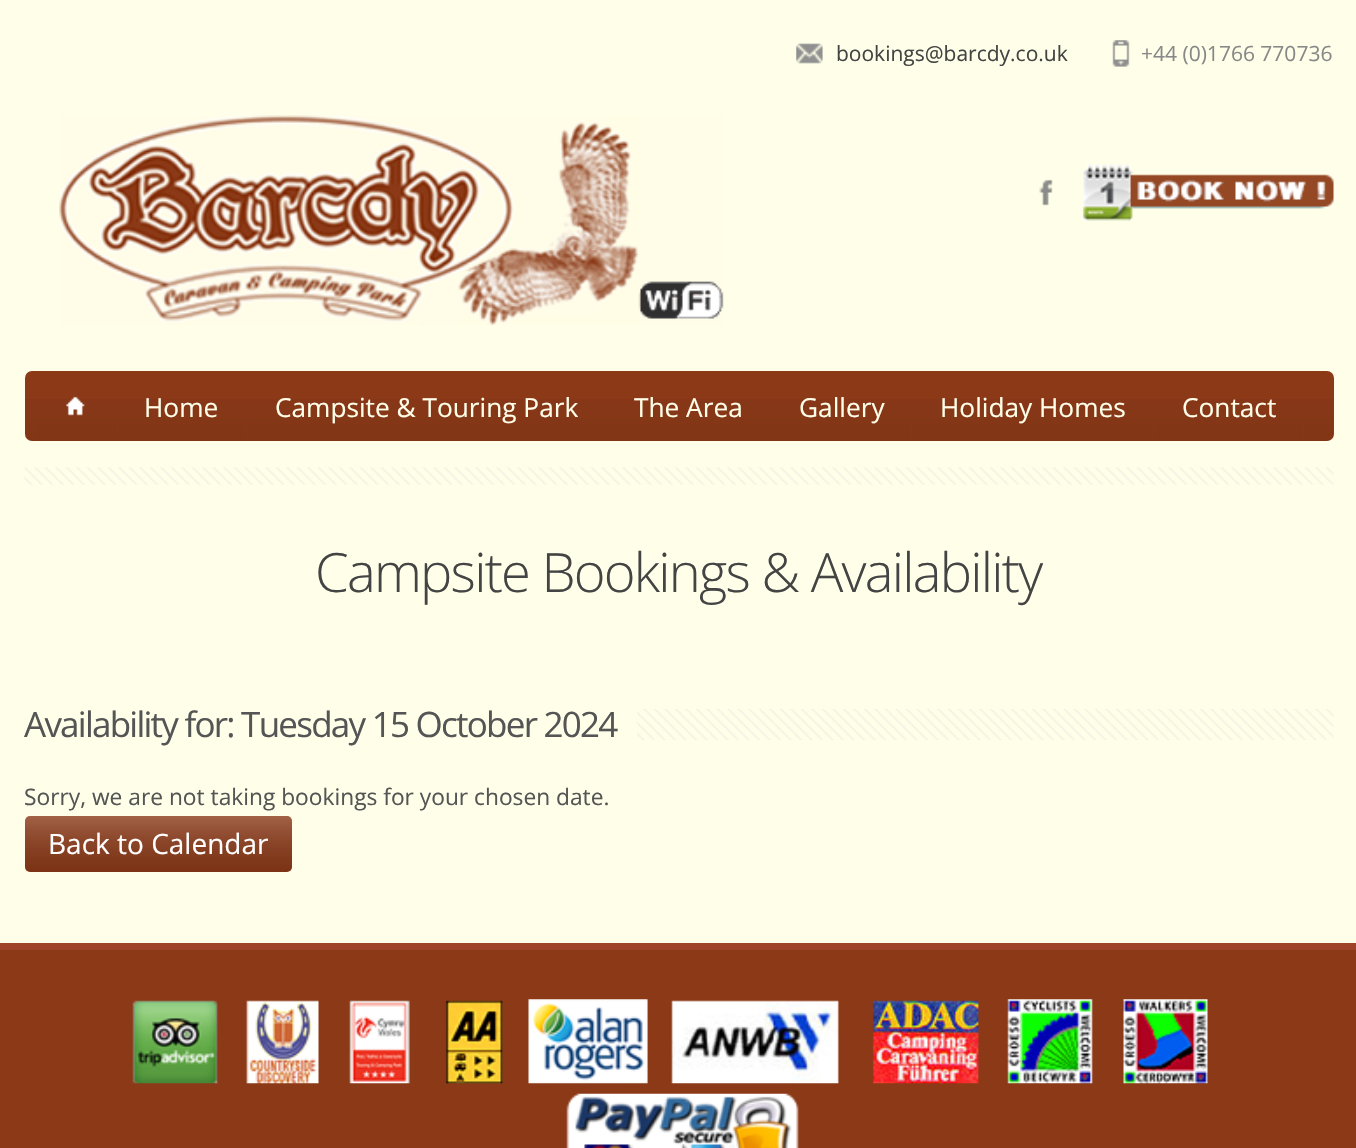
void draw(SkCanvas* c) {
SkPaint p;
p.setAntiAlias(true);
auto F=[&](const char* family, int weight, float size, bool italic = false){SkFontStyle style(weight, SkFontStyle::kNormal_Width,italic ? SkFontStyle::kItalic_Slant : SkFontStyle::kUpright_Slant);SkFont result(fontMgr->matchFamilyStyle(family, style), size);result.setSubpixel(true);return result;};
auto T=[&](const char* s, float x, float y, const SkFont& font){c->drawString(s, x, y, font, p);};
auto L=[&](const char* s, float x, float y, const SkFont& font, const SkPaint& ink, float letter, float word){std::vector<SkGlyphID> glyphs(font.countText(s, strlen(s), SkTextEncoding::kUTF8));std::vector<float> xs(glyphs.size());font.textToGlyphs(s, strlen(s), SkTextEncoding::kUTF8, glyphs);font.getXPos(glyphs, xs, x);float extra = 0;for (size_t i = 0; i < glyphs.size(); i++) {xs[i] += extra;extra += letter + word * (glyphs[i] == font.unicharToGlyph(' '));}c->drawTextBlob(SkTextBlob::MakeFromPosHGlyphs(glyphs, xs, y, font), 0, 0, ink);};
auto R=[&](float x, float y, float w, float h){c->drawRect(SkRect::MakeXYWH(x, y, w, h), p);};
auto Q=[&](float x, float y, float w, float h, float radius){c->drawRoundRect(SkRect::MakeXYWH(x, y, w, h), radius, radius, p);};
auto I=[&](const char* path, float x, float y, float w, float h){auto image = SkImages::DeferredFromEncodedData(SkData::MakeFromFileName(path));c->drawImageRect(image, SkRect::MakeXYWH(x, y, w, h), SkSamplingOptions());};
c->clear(0xffffffe9);
I("1.png",796,43,27,21);
auto f1 = F("Open Sans",400,21);
p.setColor(0xff444444);
T("bookings@barcdy.co.uk",836,61,f1);
I("2.png",1112,40,18,27);
p.setColor(0xff888888);
T("+44 (0)1766 770736",1141,61,f1);
I("3.png",1039,179,14,27);
I("4.png",1082,164,252,57);
I("5.png",59,115,665,211);
p.setColor(0xff8b3917);
Q(25,371,1309,70,7);
I("6.png",25,399,1308,42);
R(33,399,1271,42);
I("7.png",33,399,84,42);
I("8.png",66,396,19,20);
I("9.png",117,399,130,42);
auto f2 = F("Open Sans",400,26.25);
p.setColor(0xffffffe9);
T("Home",144,417,f2);
I("10.png",247,399,359,42);
T("Campsite & Touring Park",275,417,f2);
I("11.png",605,399,165,42);
T("The Area",634,417,f2);
I("12.png",770,399,142,42);
T("Gallery",799,417,f2);
I("13.png",912,399,241,42);
T("Holiday Homes",940,417,f2);
I("14.png",1153,399,151,42);
T("Contact",1182,417,f2);
I("15.png",24,467,1310,18);
auto f3 = F("Open Sans",300,54.25);
p.setColor(0xff444444);
L("Campsite Bookings & Availability",315,592,f3,p,-1.75,0);
I("16.png",24,709,1310,31);
p.setColor(0xffffffe9);
R(25,709,612,31);
auto f4 = F("Open Sans",400,35);
p.setColor(0xff555555);
L("Availability for: Tuesday 15 October 2024",24,737,f4,p,-1.75,0);
auto f5 = F("Open Sans",400,22.75);
T("Sorry, we are not taking bookings for your chosen date.",24,805,f5);
p.setColor(0xff8b3917);
Q(25,816,267,56,5);
{
const SkColor colors[] = {0x33ffffff,0x1a000000};
const float stops[] = {0,1};
const SkPoint ends[] = {{158,816}, {158,872}};
p.setShader(SkGradientShader::MakeLinear(ends, colors, stops, 2, SkTileMode::kClamp));
p.setAlpha(255);
}
Q(25,816,267,56,5);
auto f6 = F("Open Sans",400,28);
p.setShader(nullptr);
p.setColor(0xffffffff);
T("Back to Calendar",48,854,f6);
p.setColor(0xff8b3917);
R(0,950,1356,198);
p.setColor(0xff9e4429);
R(0,943,1356,7);
I("17.png",132,1000,86,84);
I("18.png",246,1000,73,84);
I("19.png",349,1000,61,84);
I("20.png",445,1000,58,84);
I("21.png",528,999,120,85);
I("22.png",671,1000,168,84);
I("23.png",872,1000,107,84);
I("24.png",1007,999,201,85);
I("25.png",566,1093,233,55);
}
